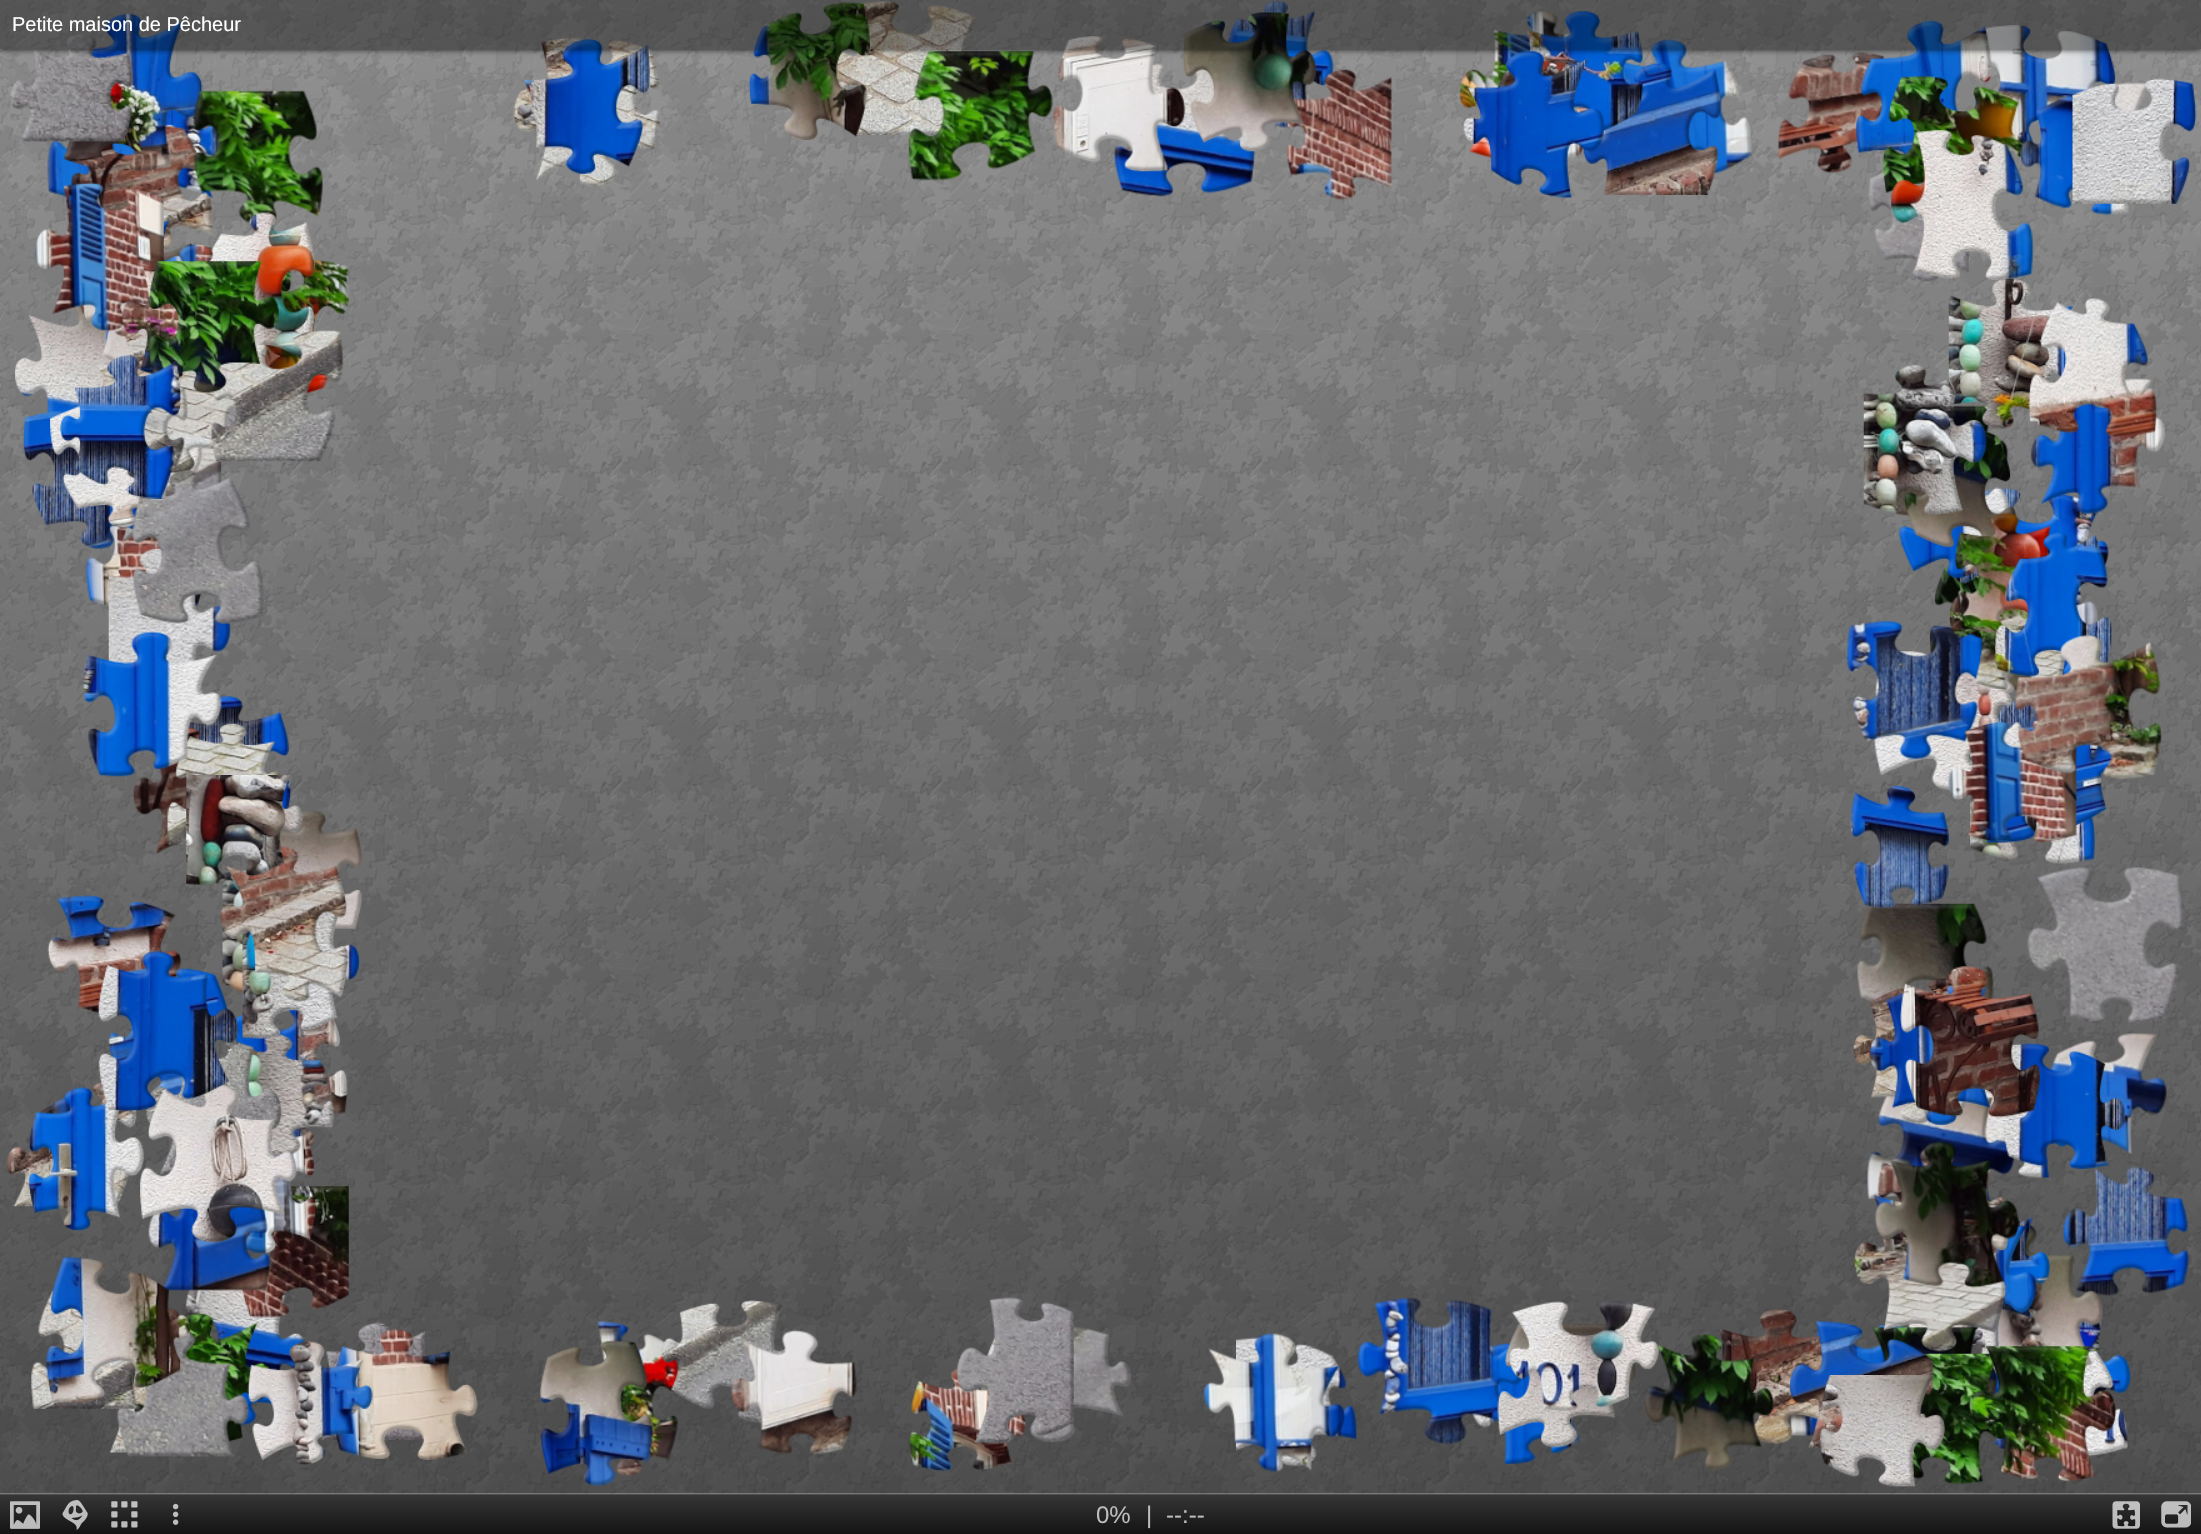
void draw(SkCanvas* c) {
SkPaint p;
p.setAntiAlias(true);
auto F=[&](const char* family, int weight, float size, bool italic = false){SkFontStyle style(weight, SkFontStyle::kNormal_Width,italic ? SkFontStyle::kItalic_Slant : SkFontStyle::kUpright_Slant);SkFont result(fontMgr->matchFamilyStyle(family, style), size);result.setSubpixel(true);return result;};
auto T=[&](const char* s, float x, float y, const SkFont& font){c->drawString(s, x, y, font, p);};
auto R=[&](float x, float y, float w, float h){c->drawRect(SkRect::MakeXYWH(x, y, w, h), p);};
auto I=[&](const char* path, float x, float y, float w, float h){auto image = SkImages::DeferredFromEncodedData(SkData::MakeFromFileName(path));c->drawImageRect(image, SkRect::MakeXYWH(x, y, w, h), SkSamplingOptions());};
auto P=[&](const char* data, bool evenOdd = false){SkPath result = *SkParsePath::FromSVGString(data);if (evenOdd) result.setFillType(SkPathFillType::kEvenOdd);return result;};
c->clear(0xffffffff);
I("1.png",0,0,2201,1494);
I("3.png",836,1,142,134);
I("2.png",748,2,122,138);
I("4.png",1225,1,109,127);
I("5.png",1459,11,136,149);
I("25.png",164,84,56,114);
I("24.png",47,124,130,74);
I("36.png",181,247,111,46);
I("38.png",15,304,101,110);
I("43.png",105,329,5,18);
I("34.png",89,243,104,119);
I("28.png",71,125,143,127);
I("6.png",63,13,140,159);
I("19.png",1113,63,143,134);
I("13.png",1053,36,133,136);
I("20.png",1286,69,106,132);
I("7.png",1182,12,135,140);
I("17.png",1602,39,150,136);
I("21.png",1582,62,140,133);
I("8.png",1498,11,146,121);
I("10.png",1975,25,141,120);
I("18.png",1777,52,108,122);
I("32.png",1868,171,101,111);
I("9.png",1856,20,136,163);
I("11.png",10,34,124,108);
I("12.png",513,37,148,150);
I("14.png",517,38,133,136);
I("15.png",908,51,145,130);
I("16.png",1463,50,142,148);
I("22.png",1882,76,150,117);
I("64.png",1930,567,102,125);
I("57.png",1950,488,159,119);
I("48.png",2031,378,135,136);
I("56.png",1898,487,112,92);
I("51.png",1894,405,115,112);
I("54.png",1903,426,115,122);
I("40.png",1948,278,125,151);
I("29.png",1891,130,143,150);
I("27.png",2020,82,143,134);
I("23.png",2072,78,125,126);
I("26.png",193,90,130,135);
I("33.png",78,219,106,119);
I("30.png",35,182,129,150);
I("37.png",262,260,87,134);
I("31.png",208,212,107,151);
I("58.png",86,524,116,83);
I("60.png",108,548,123,148);
I("53.png",122,446,100,106);
I("52.png",23,411,116,138);
I("49.png",50,405,153,123);
I("50.png",227,407,10,21);
I("42.png",101,327,136,147);
I("55.png",132,470,132,154);
I("46.png",98,365,90,114);
I("35.png",122,243,100,135);
I("44.png",210,330,134,132);
I("39.png",148,261,131,132);
I("41.png",2028,298,129,139);
I("45.png",60,355,121,144);
I("47.png",1863,365,124,150);
I("62.png",1966,548,132,146);
I("77.png",1970,751,125,113);
I("70.png",1986,700,127,143);
I("69.png",1873,651,151,139);
I("66.png",1846,621,137,139);
I("63.png",1949,551,117,140);
I("59.png",1955,512,96,122);
I("61.png",1995,532,117,145);
I("68.png",187,696,105,113);
I("73.png",133,727,89,128);
I("75.png",248,810,115,119);
I("71.png",167,723,115,123);
I("65.png",82,631,140,146);
I("72.png",1947,719,130,124);
I("67.png",2014,634,148,146);
I("81.png",222,870,40,124);
I("80.png",47,895,135,121);
I("93.png",6,1081,131,126);
I("86.png",108,968,120,128);
I("88.png",234,1009,114,139);
I("108.png",184,1289,122,136);
I("101.png",241,1186,108,132);
I("97.png",244,1134,72,120);
I("91.png",233,1033,102,124);
I("90.png",146,1041,136,133);
I("96.png",28,1087,116,144);
I("104.png",148,1206,123,85);
I("94.png",140,1084,157,159);
I("83.png",98,951,141,161);
I("84.png",242,911,118,128);
I("78.png",220,846,129,156);
I("74.png",186,775,117,110);
I("82.png",1857,903,137,100);
I("76.png",1850,786,99,123);
I("79.png",2027,867,158,157);
I("92.png",2049,1033,118,122);
I("103.png",2063,1166,127,130);
I("99.png",1983,1088,86,91);
I("98.png",1867,1096,148,106);
I("87.png",1853,977,114,147);
I("89.png",1870,984,121,141);
I("123.png",1990,1314,141,132);
I("136.png",1994,1345,134,112);
I("110.png",1980,1219,124,156);
I("106.png",1992,1217,58,101);
I("109.png",1908,1226,129,125);
I("102.png",1877,1147,131,108);
I("130.png",1790,1324,122,113);
I("131.png",1871,1327,128,110);
I("105.png",1854,1194,155,158);
I("100.png",1874,1141,146,148);
I("95.png",2002,1043,123,126);
I("85.png",1900,966,140,152);
I("112.png",109,1308,105,145);
I("118.png",132,1313,139,130);
I("124.png",116,1330,133,127);
I("111.png",31,1290,108,119);
I("107.png",46,1257,145,146);
I("120.png",597,1321,82,155);
I("113.png",661,1300,126,124);
I("127.png",980,1326,152,117);
I("137.png",910,1367,117,105);
I("114.png",956,1297,118,147);
I("135.png",1472,1343,109,121);
I("115.png",1357,1297,166,148);
I("121.png",1497,1323,139,125);
I("116.png",1509,1301,150,111);
I("117.png",1719,1309,104,135);
I("119.png",321,1322,104,118);
I("139.png",1886,1353,120,131);
I("122.png",1790,1321,144,127);
I("125.png",335,1328,143,132);
I("126.png",730,1329,127,126);
I("134.png",1236,1337,121,130);
I("128.png",1203,1333,143,139);
I("129.png",1645,1334,129,136);
I("132.png",247,1341,126,124);
I("133.png",540,1340,113,147);
I("138.png",1820,1375,125,112);
I("140.png",1971,1346,146,136);
c->save();
c->clipPath(P("M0 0h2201v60h-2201zm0 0h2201v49h-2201z",true),true);
p.setColor(0xb3000000);
p.setMaskFilter(SkMaskFilter::MakeBlur(kNormal_SkBlurStyle, 3));
c->drawRect(SkRect::MakeXYWH(0,1,2201,49),p);
p.setMaskFilter(nullptr);
c->restore();
p.setColor(0x66000000);
R(0,0,2201,49);
auto f1 = F("Liberation Sans",400,20);
p.setColor(0xffffffff);
T("Petite maison de Pêcheur",12,31,f1);
{
const SkColor colors[] = {0xff363636,0xff121212};
const float stops[] = {0,1};
const SkPoint ends[] = {{1101,1495}, {1101,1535}};
p.setShader(SkGradientShader::MakeLinear(ends, colors, stops, 2, SkTileMode::kClamp));
p.setAlpha(255);
}
R(0,1495,2201,39);
p.setShader(nullptr);
p.setColor(0xff4f4f4f);
R(0,1494,2201,1);
I("141.png",10,1501,30,28);
I("142.png",62,1500,26,30);
I("143.png",111,1501,27,27);
I("144.png",172,1503,7,22);
auto f2 = F("Liberation Sans",400,24);
p.setColor(0xffbdbdbd);
T("0%",1096,1523,f2);
T("|",1146,1523,f2);
T("--:--",1166,1523,f2);
I("145.png",2112,1501,28,28);
I("146.png",2161,1501,30,27);
}
